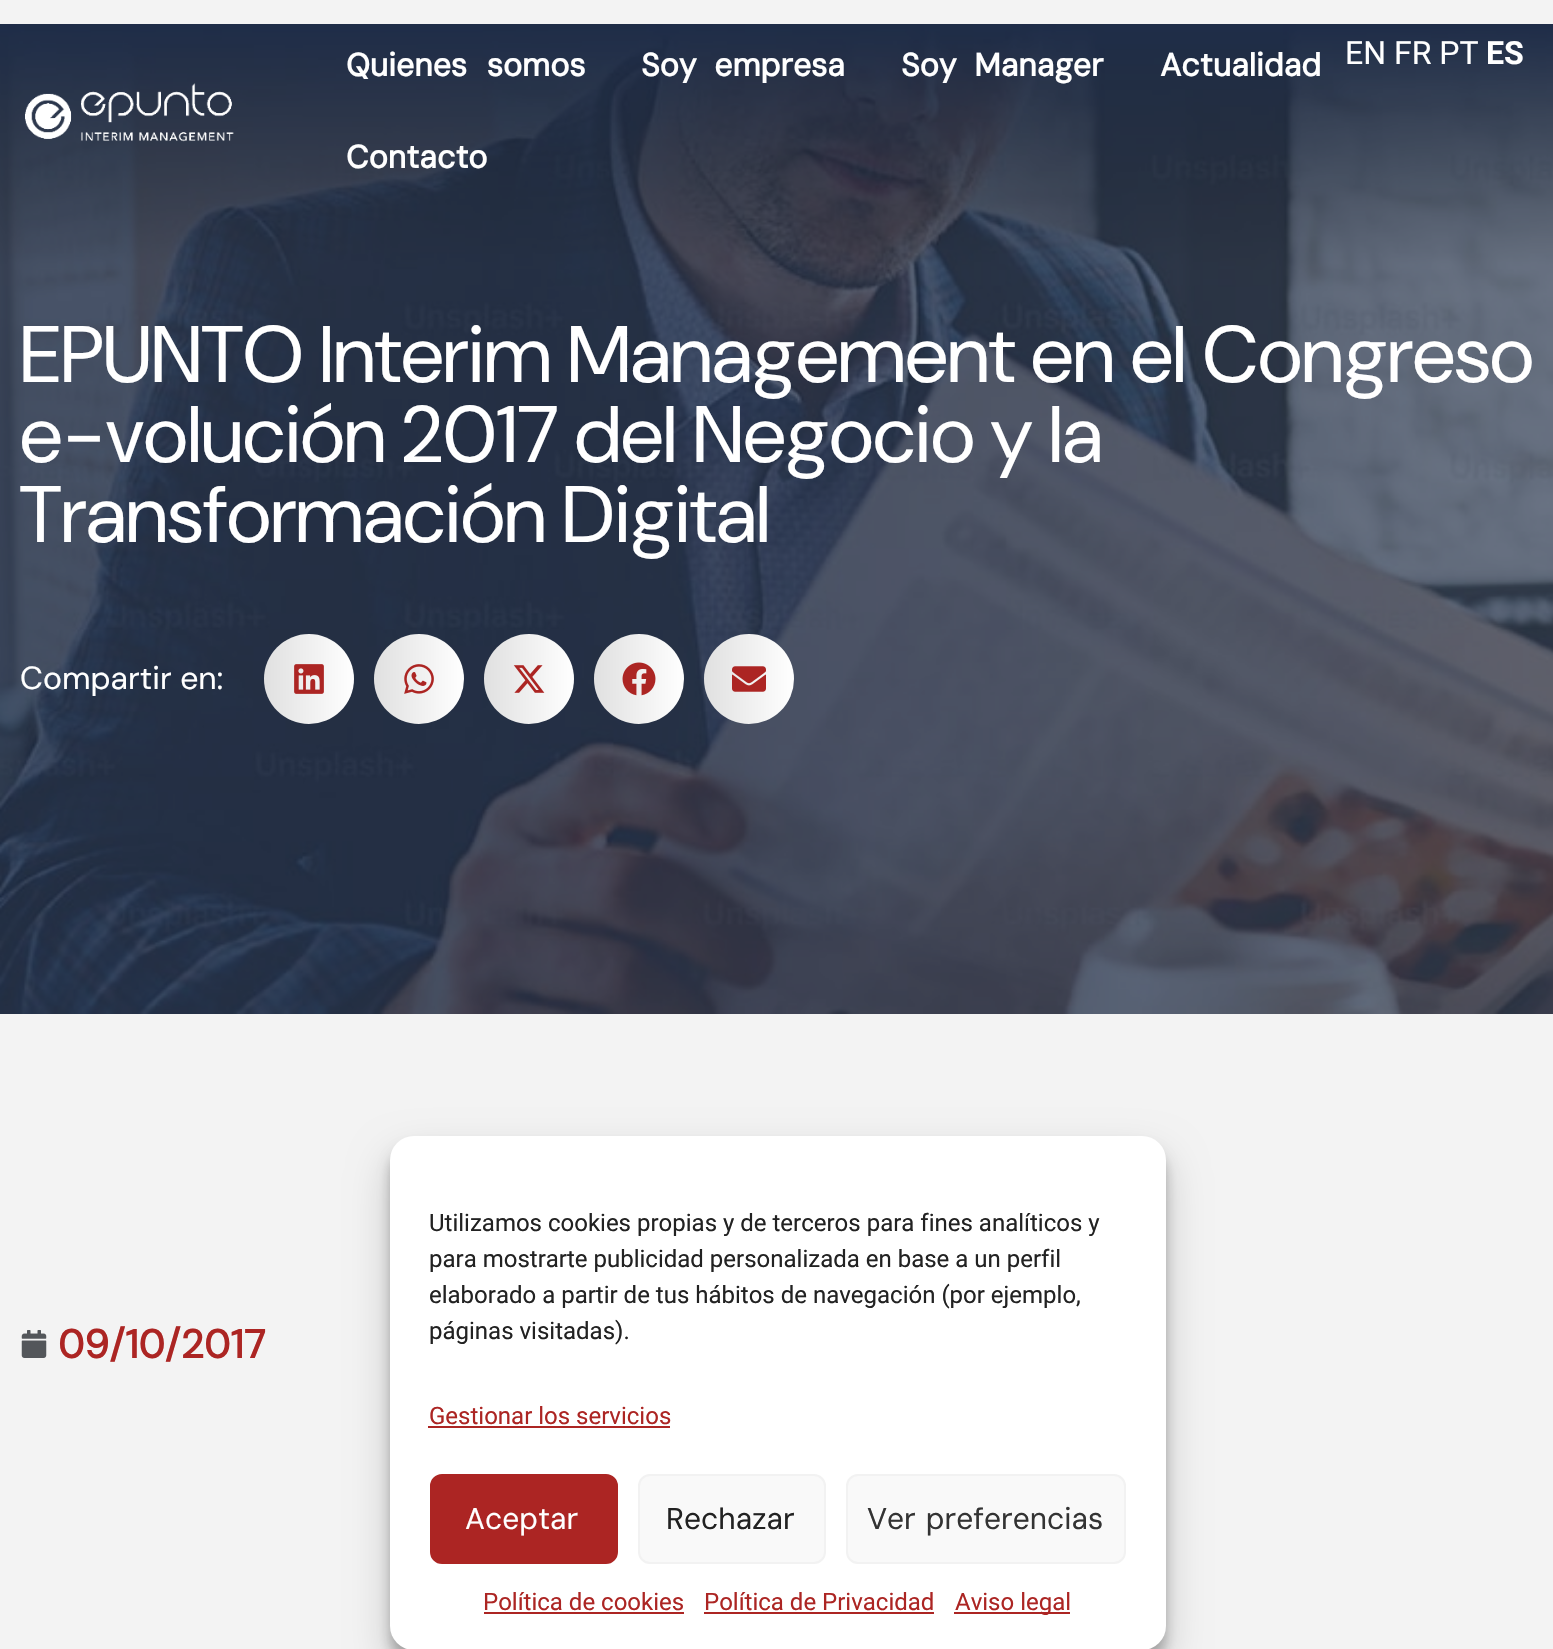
void draw(SkCanvas* c) {
SkPaint p;
p.setAntiAlias(true);
auto F=[&](const char* family, int weight, float size, bool italic = false){SkFontStyle style(weight, SkFontStyle::kNormal_Width,italic ? SkFontStyle::kItalic_Slant : SkFontStyle::kUpright_Slant);SkFont result(fontMgr->matchFamilyStyle(family, style), size);result.setSubpixel(true);return result;};
auto T=[&](const char* s, float x, float y, const SkFont& font){c->drawString(s, x, y, font, p);};
auto L=[&](const char* s, float x, float y, const SkFont& font, const SkPaint& ink, float letter, float word){std::vector<SkGlyphID> glyphs(font.countText(s, strlen(s), SkTextEncoding::kUTF8));std::vector<float> xs(glyphs.size());font.textToGlyphs(s, strlen(s), SkTextEncoding::kUTF8, glyphs);font.getXPos(glyphs, xs, x);float extra = 0;for (size_t i = 0; i < glyphs.size(); i++) {xs[i] += extra;extra += letter + word * (glyphs[i] == font.unicharToGlyph(' '));}c->drawTextBlob(SkTextBlob::MakeFromPosHGlyphs(glyphs, xs, y, font), 0, 0, ink);};
auto R=[&](float x, float y, float w, float h){c->drawRect(SkRect::MakeXYWH(x, y, w, h), p);};
auto Q=[&](float x, float y, float w, float h, float radius){c->drawRoundRect(SkRect::MakeXYWH(x, y, w, h), radius, radius, p);};
auto I=[&](const char* path, float x, float y, float w, float h){auto image = SkImages::DeferredFromEncodedData(SkData::MakeFromFileName(path));c->drawImageRect(image, SkRect::MakeXYWH(x, y, w, h), SkSamplingOptions());};
c->clear(0xfff3f3f3);
I("2.png",0,24,1553,990);
I("1.png",25,83,209,59);
auto f1 = F("DM Sans",700,32);
p.setColor(0xffffffff);
L("Quienes somos",346,76,f1,p,0,11);
L("Soy empresa",641,76,f1,p,0,9);
L("Soy Manager",901,76,f1,p,0,9);
T("Actualidad",1160,76,f1);
T("Contacto",346,168,f1);
auto f2 = F("Roboto",400,32);
T("EN FR PT",1345,64,f2);
auto f3 = F("Roboto",700,32);
T("ES",1486,64,f3);
auto f4 = F("DM Sans",400,80);
T("EPUNTO Interim Management en el Congreso",20,382,f4);
T("e-volución 2017 del Negocio y la",20,462,f4);
T("Transformación Digital",20,542,f4);
auto f5 = F("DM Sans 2",400,32);
T("Compartir en:",20,689,f5);
c->drawCircle(309,679,45,p);
{
const SkColor colors[] = {0x1f000000,0x00000000};
const float stops[] = {0,1};
const SkPoint ends[] = {{264,679}, {354,679}};
p.setShader(SkGradientShader::MakeLinear(ends, colors, stops, 2, SkTileMode::kClamp));
p.setAlpha(255);
}
c->drawCircle(309,679,45,p);
I("3.png",294,664,30,30);
p.setShader(nullptr);
p.setColor(0xffffffff);
c->drawCircle(419,679,45,p);
{
const SkColor colors[] = {0x1f000000,0x00000000};
const float stops[] = {0,1};
const SkPoint ends[] = {{374,679}, {464,679}};
p.setShader(SkGradientShader::MakeLinear(ends, colors, stops, 2, SkTileMode::kClamp));
p.setAlpha(255);
}
c->drawCircle(419,679,45,p);
I("4.png",404,664,30,30);
p.setShader(nullptr);
p.setColor(0xffffffff);
c->drawCircle(529,679,45,p);
{
const SkColor colors[] = {0x1f000000,0x00000000};
const float stops[] = {0,1};
const SkPoint ends[] = {{484,679}, {574,679}};
p.setShader(SkGradientShader::MakeLinear(ends, colors, stops, 2, SkTileMode::kClamp));
p.setAlpha(255);
}
c->drawCircle(529,679,45,p);
I("5.png",513,665,32,28);
p.setShader(nullptr);
p.setColor(0xffffffff);
c->drawCircle(639,679,45,p);
{
const SkColor colors[] = {0x1f000000,0x00000000};
const float stops[] = {0,1};
const SkPoint ends[] = {{594,679}, {684,679}};
p.setShader(SkGradientShader::MakeLinear(ends, colors, stops, 2, SkTileMode::kClamp));
p.setAlpha(255);
}
c->drawCircle(639,679,45,p);
I("6.png",622,662,34,34);
p.setShader(nullptr);
p.setColor(0xffffffff);
c->drawCircle(749,679,45,p);
{
const SkColor colors[] = {0x1f000000,0x00000000};
const float stops[] = {0,1};
const SkPoint ends[] = {{704,679}, {794,679}};
p.setShader(SkGradientShader::MakeLinear(ends, colors, stops, 2, SkTileMode::kClamp));
p.setAlpha(255);
}
c->drawCircle(749,679,45,p);
I("7.png",732,666,34,26);
I("8.png",21,1330,26,28);
auto f6 = F("DM Sans",700,40);
p.setShader(nullptr);
p.setColor(0xffac2523);
T("09/10/2017",58,1358,f6);
p.setColor(0x3b000000);
p.setMaskFilter(SkMaskFilter::MakeBlur(kNormal_SkBlurStyle, 6));
c->drawRoundRect(SkRect::MakeXYWH(390,1148,776,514),24,24,p);
p.setMaskFilter(nullptr);
p.setColor(0x30000000);
p.setMaskFilter(SkMaskFilter::MakeBlur(kNormal_SkBlurStyle, 20));
c->drawRoundRect(SkRect::MakeXYWH(390,1156,776,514),24,24,p);
p.setMaskFilter(nullptr);
p.setColor(0xffffffff);
Q(390,1136,776,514,24);
auto f7 = F("Roboto",400,24);
p.setColor(0xff222222);
T("Utilizamos cookies propias y de terceros para fines analíticos y",429,1231,f7);
T("para mostrarte publicidad personalizada en base a un perfil",429,1267,f7);
c->save();
c->clipRect(SkRect::MakeXYWH(430,1206,696,172));
T("elaborado a partir de tus hábitos de navegación (por ejemplo,",429,1303,f7);
c->restore();
T("páginas visitadas).",429,1339,f7);
p.setColor(0xffac2523);
T("Gestionar los servicios",429,1424,f7);
R(428,1426,242,2);
c->drawRoundRect(SkRect::MakeXYWH(431,1475,186,88),11,11,p);
p.setStroke(true);
p.setStrokeWidth(2);
c->drawRoundRect(SkRect::MakeXYWH(431,1475,186,88),11,11,p);
auto f8 = F("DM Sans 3",400,30);
p.setStroke(false);
p.setColor(0xffffffff);
T("Aceptar",465,1529,f8);
p.setColor(0xfff9f9f9);
c->drawRoundRect(SkRect::MakeXYWH(639,1475,186,88),11,11,p);
p.setStroke(true);
p.setColor(0xfff2f2f2);
c->drawRoundRect(SkRect::MakeXYWH(639,1475,186,88),11,11,p);
p.setStroke(false);
p.setColor(0xff222222);
T("Rechazar",666,1529,f8);
p.setColor(0xfff9f9f9);
c->drawRoundRect(SkRect::MakeXYWH(847,1475,278,88),11,11,p);
p.setStroke(true);
p.setColor(0xfff2f2f2);
c->drawRoundRect(SkRect::MakeXYWH(847,1475,278,88),11,11,p);
p.setStroke(false);
p.setColor(0xff333333);
L("Ver preferencias",867,1529,f8,p,0,2);
p.setColor(0xffac2523);
T("Política de cookies",483,1610,f7);
R(484,1612,200,2);
T("Política de Privacidad",704,1610,f7);
R(704,1612,230,2);
R(954,1612,116,2);
T("Aviso legal",955,1610,f7);
}
